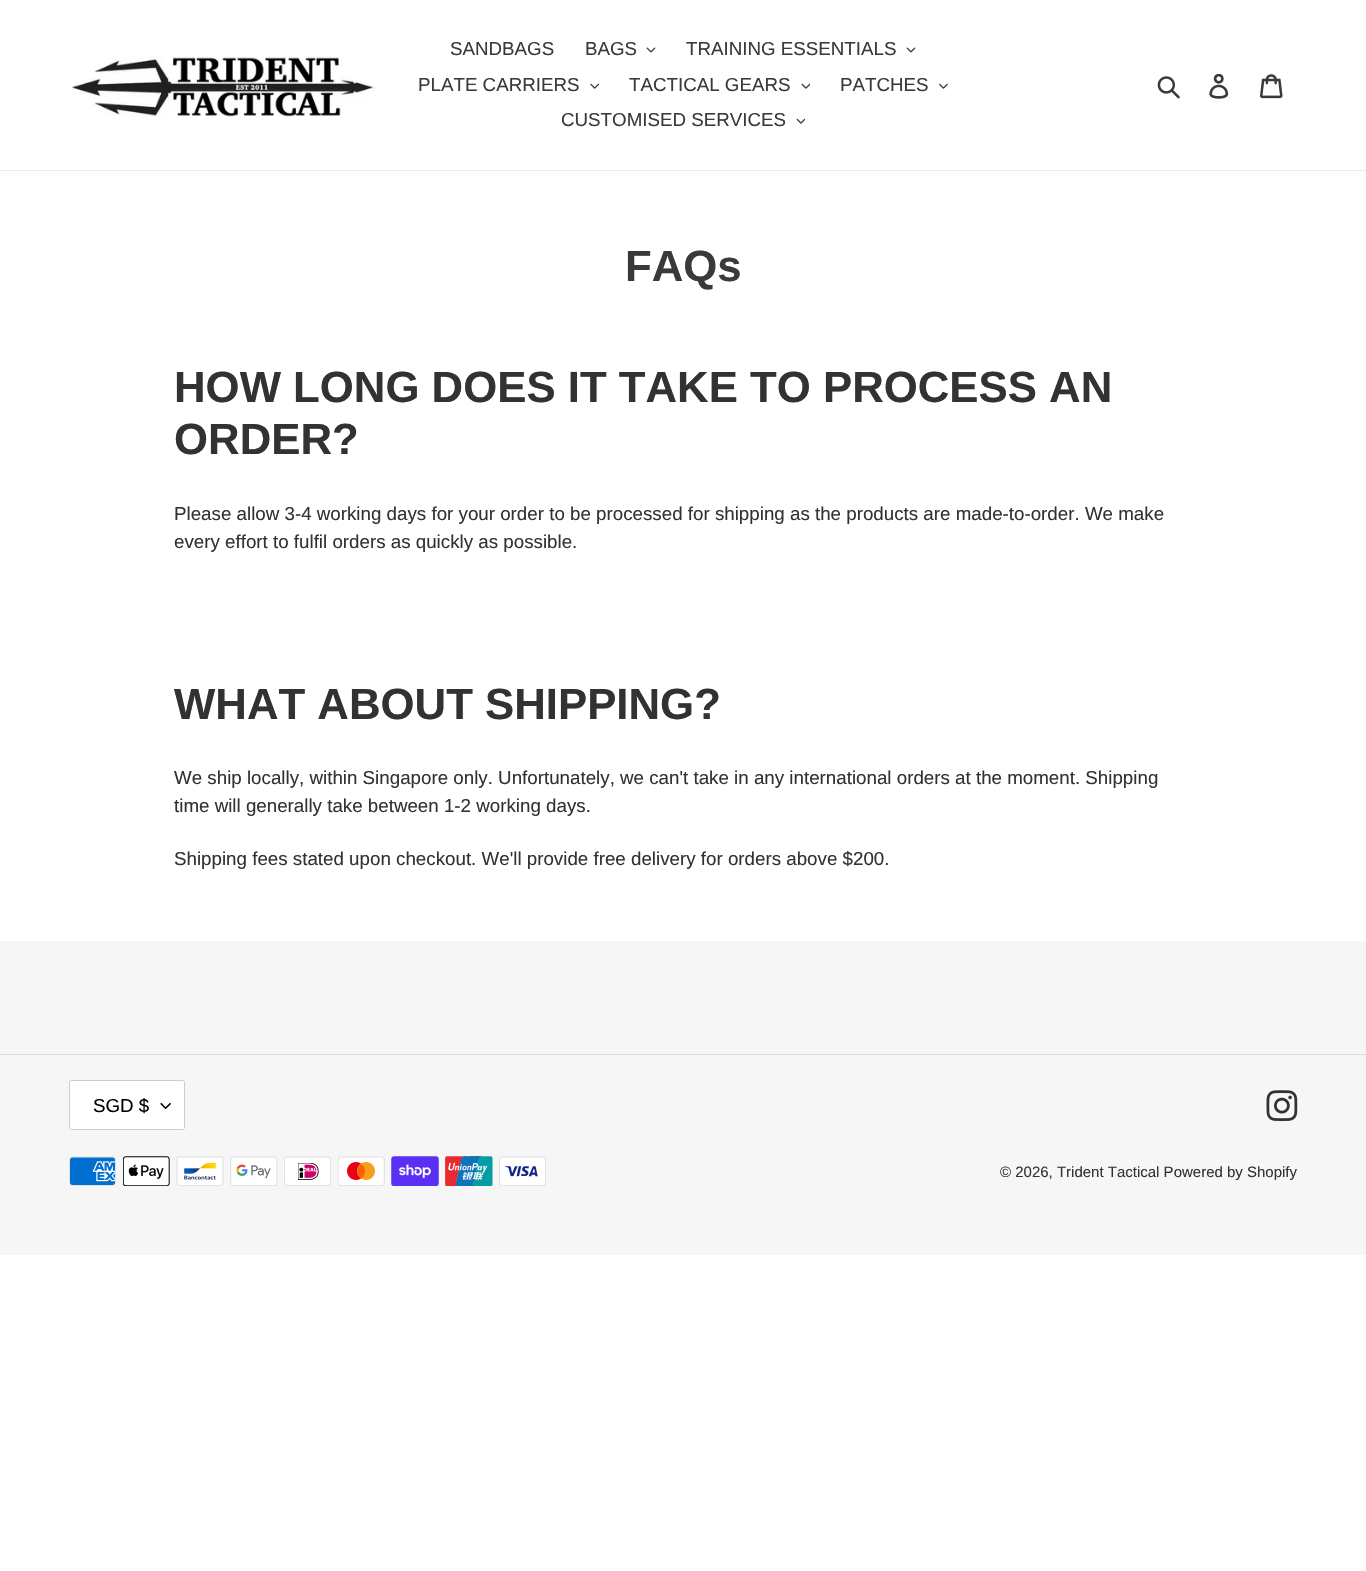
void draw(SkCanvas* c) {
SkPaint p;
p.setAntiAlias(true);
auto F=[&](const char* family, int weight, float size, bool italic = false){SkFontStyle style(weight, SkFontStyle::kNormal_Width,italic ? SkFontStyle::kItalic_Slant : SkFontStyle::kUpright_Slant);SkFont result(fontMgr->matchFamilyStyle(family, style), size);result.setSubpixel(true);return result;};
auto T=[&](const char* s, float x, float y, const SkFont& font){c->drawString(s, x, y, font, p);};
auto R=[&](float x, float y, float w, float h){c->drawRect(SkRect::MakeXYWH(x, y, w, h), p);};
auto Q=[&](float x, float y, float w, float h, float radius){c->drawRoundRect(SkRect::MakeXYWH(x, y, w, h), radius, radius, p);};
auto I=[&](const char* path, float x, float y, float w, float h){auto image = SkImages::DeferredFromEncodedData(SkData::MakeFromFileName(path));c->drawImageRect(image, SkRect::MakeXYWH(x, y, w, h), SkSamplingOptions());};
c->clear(0xffffffff);
p.setColor(0xffebebeb);
R(0,170,1366,1);
I("1.png",72,55,304,62);
auto f1 = F("Liberation Sans",400,18.75);
p.setColor(0xff3a3a3a);
T("SANDBAGS",450,55,f1);
T("BAGS",585,55,f1);
I("2.png",646,47,10,6);
T("TRAINING ESSENTIALS",686,55,f1);
I("2.png",906,47,10,6);
T("PLATE CARRIERS",418,91,f1);
I("3.png",590,83,9,6);
T("TACTICAL GEARS",629,91,f1);
I("4.png",801,83,9,6);
T("PATCHES",840,91,f1);
I("5.png",939,83,9,6);
T("CUSTOMISED SERVICES",561,126,f1);
I("4.png",796,118,9,6);
I("6.png",1157,76,23,23);
I("7.png",1209,74,20,25);
I("8.png",1260,74,23,25);
auto f2 = F("Liberation Sans",700,43.75);
T("FAQs",625,281,f2);
p.setColor(0xff333232);
T("HOW LONG DOES IT TAKE TO PROCESS AN",174,402,f2);
T("ORDER?",174,454,f2);
T("Please allow 3-4 working days for your order to be processed for shipping as the products are made-to-order. We make",174,520,f1);
T("every effort to fulfil orders as quickly as possible.",174,548,f1);
T("WHAT ABOUT SHIPPING?",174,719,f2);
T("We ship locally, within Singapore only. Unfortunately, we can't take in any international orders at the moment. Shipping",174,784,f1);
T("time will generally take between 1-2 working days.",174,812,f1);
T("Shipping fees stated upon checkout. We'll provide free delivery for orders above $200.",174,865,f1);
p.setColor(0xfff6f6f6);
R(0,941,1366,314);
p.setColor(0xffdddddd);
R(0,1054,1366,1);
p.setColor(0xffffffff);
Q(69,1080,116,50,2.5);
I("9.png",160,1103,11,6);
p.setStroke(true);
p.setStrokeWidth(1);
p.setColor(0xffcccccc);
c->drawRoundRect(SkRect::MakeXYWH(69.5,1080.5,115,49),2,2,p);
p.setStroke(false);
p.setColor(0xff000000);
T("SGD $",93,1112,f1);
I("10.png",1266,1090,32,31);
I("11.png",69,1156,47,30);
I("12.png",123,1156,47,30);
I("13.png",176,1156,48,30);
I("14.png",230,1156,48,30);
I("15.png",284,1156,47,30);
I("16.png",338,1156,47,30);
I("17.png",391,1156,48,30);
I("18.png",445,1156,48,30);
I("19.png",499,1156,47,30);
auto f3 = F("Liberation Sans",400,15);
p.setColor(0xff333232);
T("© 2026, Trident Tactical Powered by Shopify",1000,1177,f3);
}
